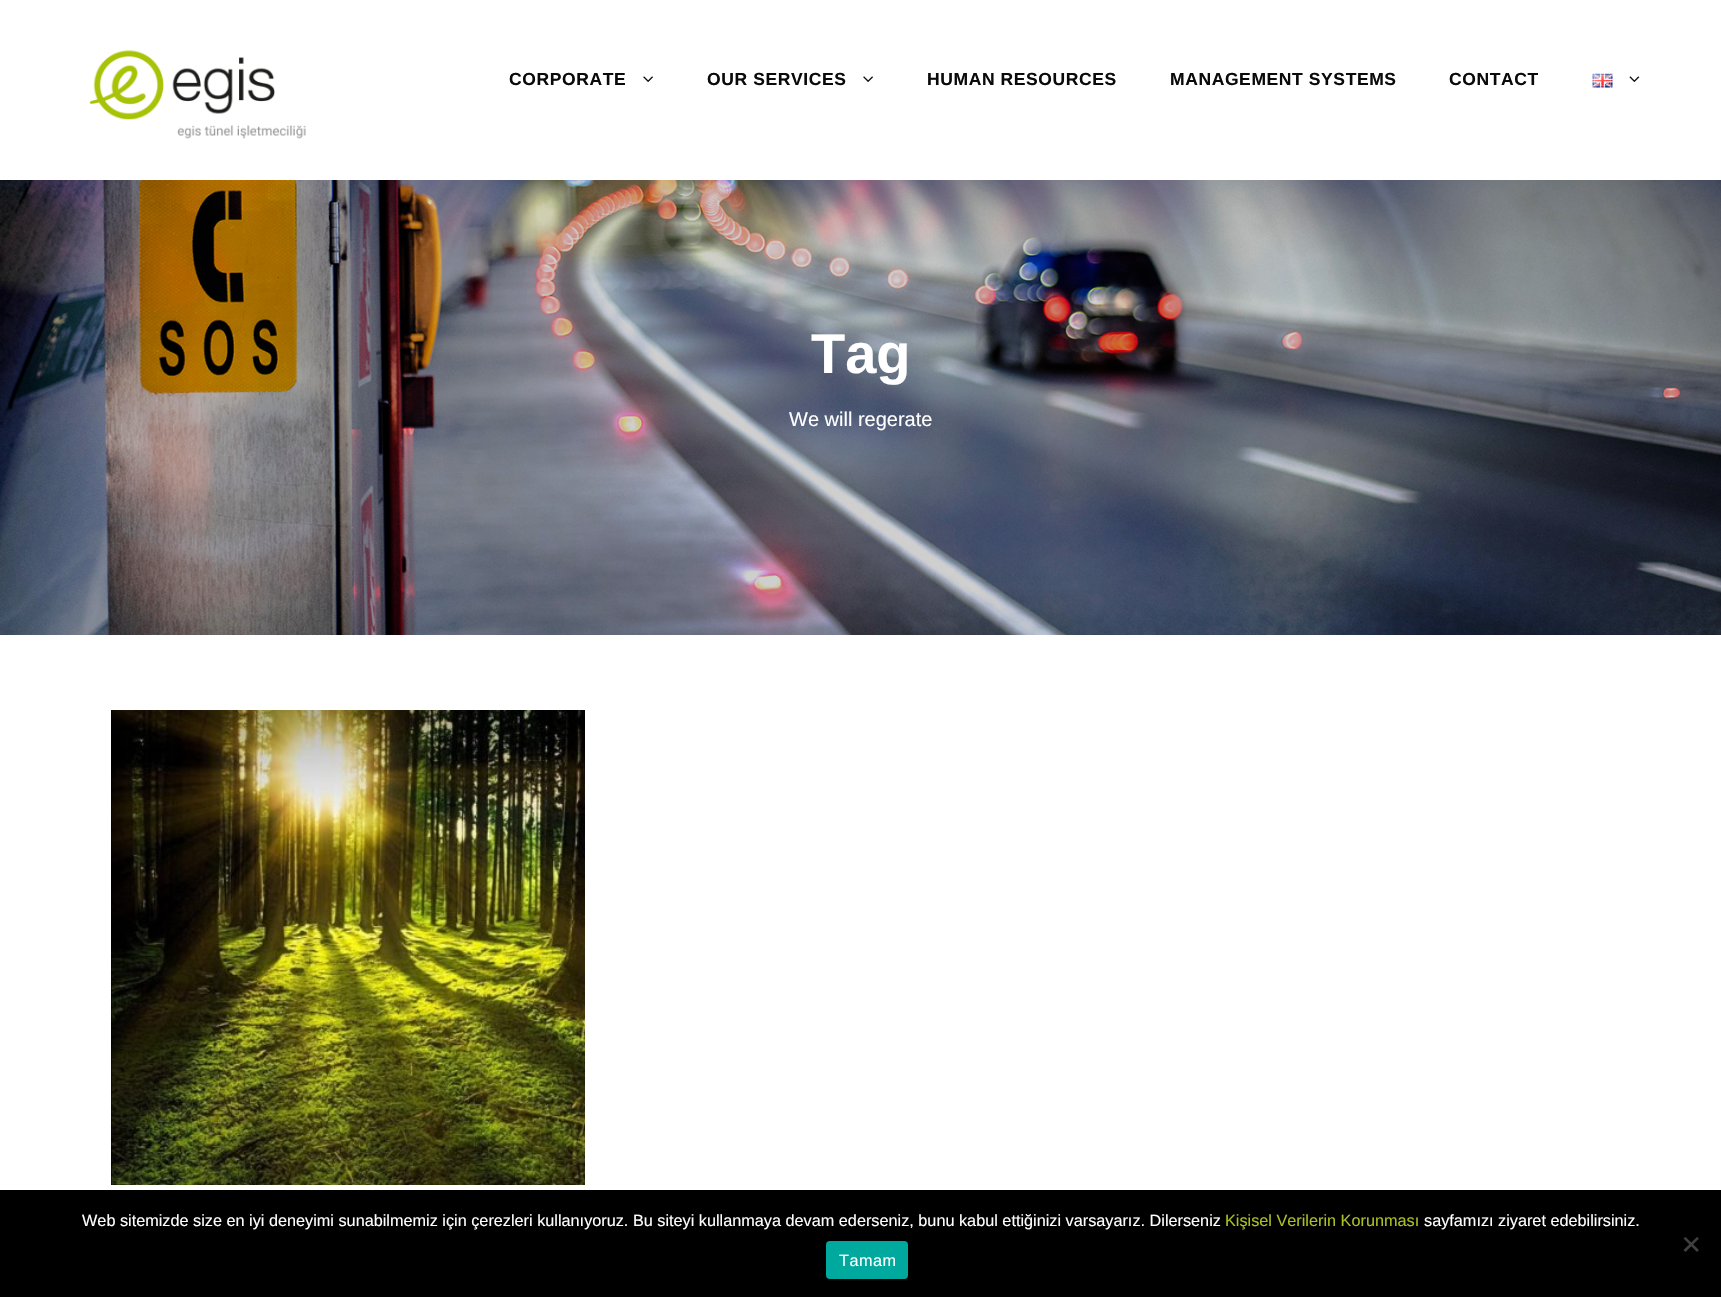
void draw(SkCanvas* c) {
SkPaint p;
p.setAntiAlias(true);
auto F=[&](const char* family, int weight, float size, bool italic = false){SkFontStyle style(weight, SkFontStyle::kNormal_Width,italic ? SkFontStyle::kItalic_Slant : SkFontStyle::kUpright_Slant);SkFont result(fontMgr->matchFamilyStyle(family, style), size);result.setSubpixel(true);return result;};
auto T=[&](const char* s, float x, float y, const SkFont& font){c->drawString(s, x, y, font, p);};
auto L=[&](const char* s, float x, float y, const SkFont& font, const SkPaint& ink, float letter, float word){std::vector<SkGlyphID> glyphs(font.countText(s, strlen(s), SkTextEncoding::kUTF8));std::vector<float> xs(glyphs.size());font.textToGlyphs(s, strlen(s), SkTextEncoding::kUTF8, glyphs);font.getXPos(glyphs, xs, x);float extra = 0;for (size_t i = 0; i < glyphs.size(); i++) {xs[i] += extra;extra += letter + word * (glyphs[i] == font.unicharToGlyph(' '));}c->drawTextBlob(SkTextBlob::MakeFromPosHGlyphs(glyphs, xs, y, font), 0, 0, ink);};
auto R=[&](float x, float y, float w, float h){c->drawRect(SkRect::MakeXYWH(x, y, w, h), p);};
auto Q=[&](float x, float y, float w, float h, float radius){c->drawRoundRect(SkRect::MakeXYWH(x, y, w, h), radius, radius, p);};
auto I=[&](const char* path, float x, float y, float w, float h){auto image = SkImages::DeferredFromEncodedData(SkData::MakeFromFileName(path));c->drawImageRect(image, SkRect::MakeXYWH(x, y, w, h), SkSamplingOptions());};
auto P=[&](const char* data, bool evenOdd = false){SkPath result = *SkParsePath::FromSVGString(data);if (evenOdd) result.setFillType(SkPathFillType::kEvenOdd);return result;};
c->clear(0xffffffff);
I("1.png",89,50,217,89);
auto f1 = F("Liberation Sans",700,17.5);
p.setColor(0xff0a0a0a);
L("CORPORATE",509,85,f1,p,.6,0);
I("2.png",643,76,10,6);
L("OUR SERVICES",707,85,f1,p,.6,0);
I("2.png",863,76,10,6);
L("HUMAN RESOURCES",927,85,f1,p,.6,0);
L("MANAGEMENT SYSTEMS",1170,85,f1,p,.6,0);
L("CONTACT",1449,85,f1,p,.6,0);
I("3.png",1592,73,21,15);
I("4.png",1629,76,11,6);
I("5.png",0,180,1721,455);
auto f2 = F("Liberation Sans",700,56);
p.setColor(0xffffffff);
T("Tag",811,373,f2);
auto f3 = F("Liberation Sans",400,20);
T("We will regerate",789,426,f3);
p.setColor(0xff000000);
R(111,710,1,475);
I("6.png",111,710,474,475);
R(0,1190,1721,107);
auto f4 = F("Liberation Sans",400,16.25);
p.setColor(0xffffffff);
T("Web sitemizde size en iyi deneyimi sunabilmemiz için çerezleri kullanıyoruz. Bu siteyi kullanmaya devam ederseniz, bunu kabul ettiğinizi varsayarız. Dilerseniz",82,1226,f4);
p.setColor(0xffabc022);
T("Kişisel Verilerin Korunması",1225,1226,f4);
p.setColor(0xffffffff);
T("sayfamızı ziyaret edebilirsiniz.",1424,1226,f4);
p.setColor(0xff404040);
c->drawPath(P("M1697 1237l2 1.5l-13.5 13.5l-2-2z"),p);
c->drawPath(P("M1683.5 1238.5l2-1.5l13.5 13l-2 2z"),p);
p.setColor(0xff00a99d);
Q(826,1241,82,38,4);
p.setColor(0xffffffff);
L("Tamam",839,1266,f4,p,.5,0);
}
